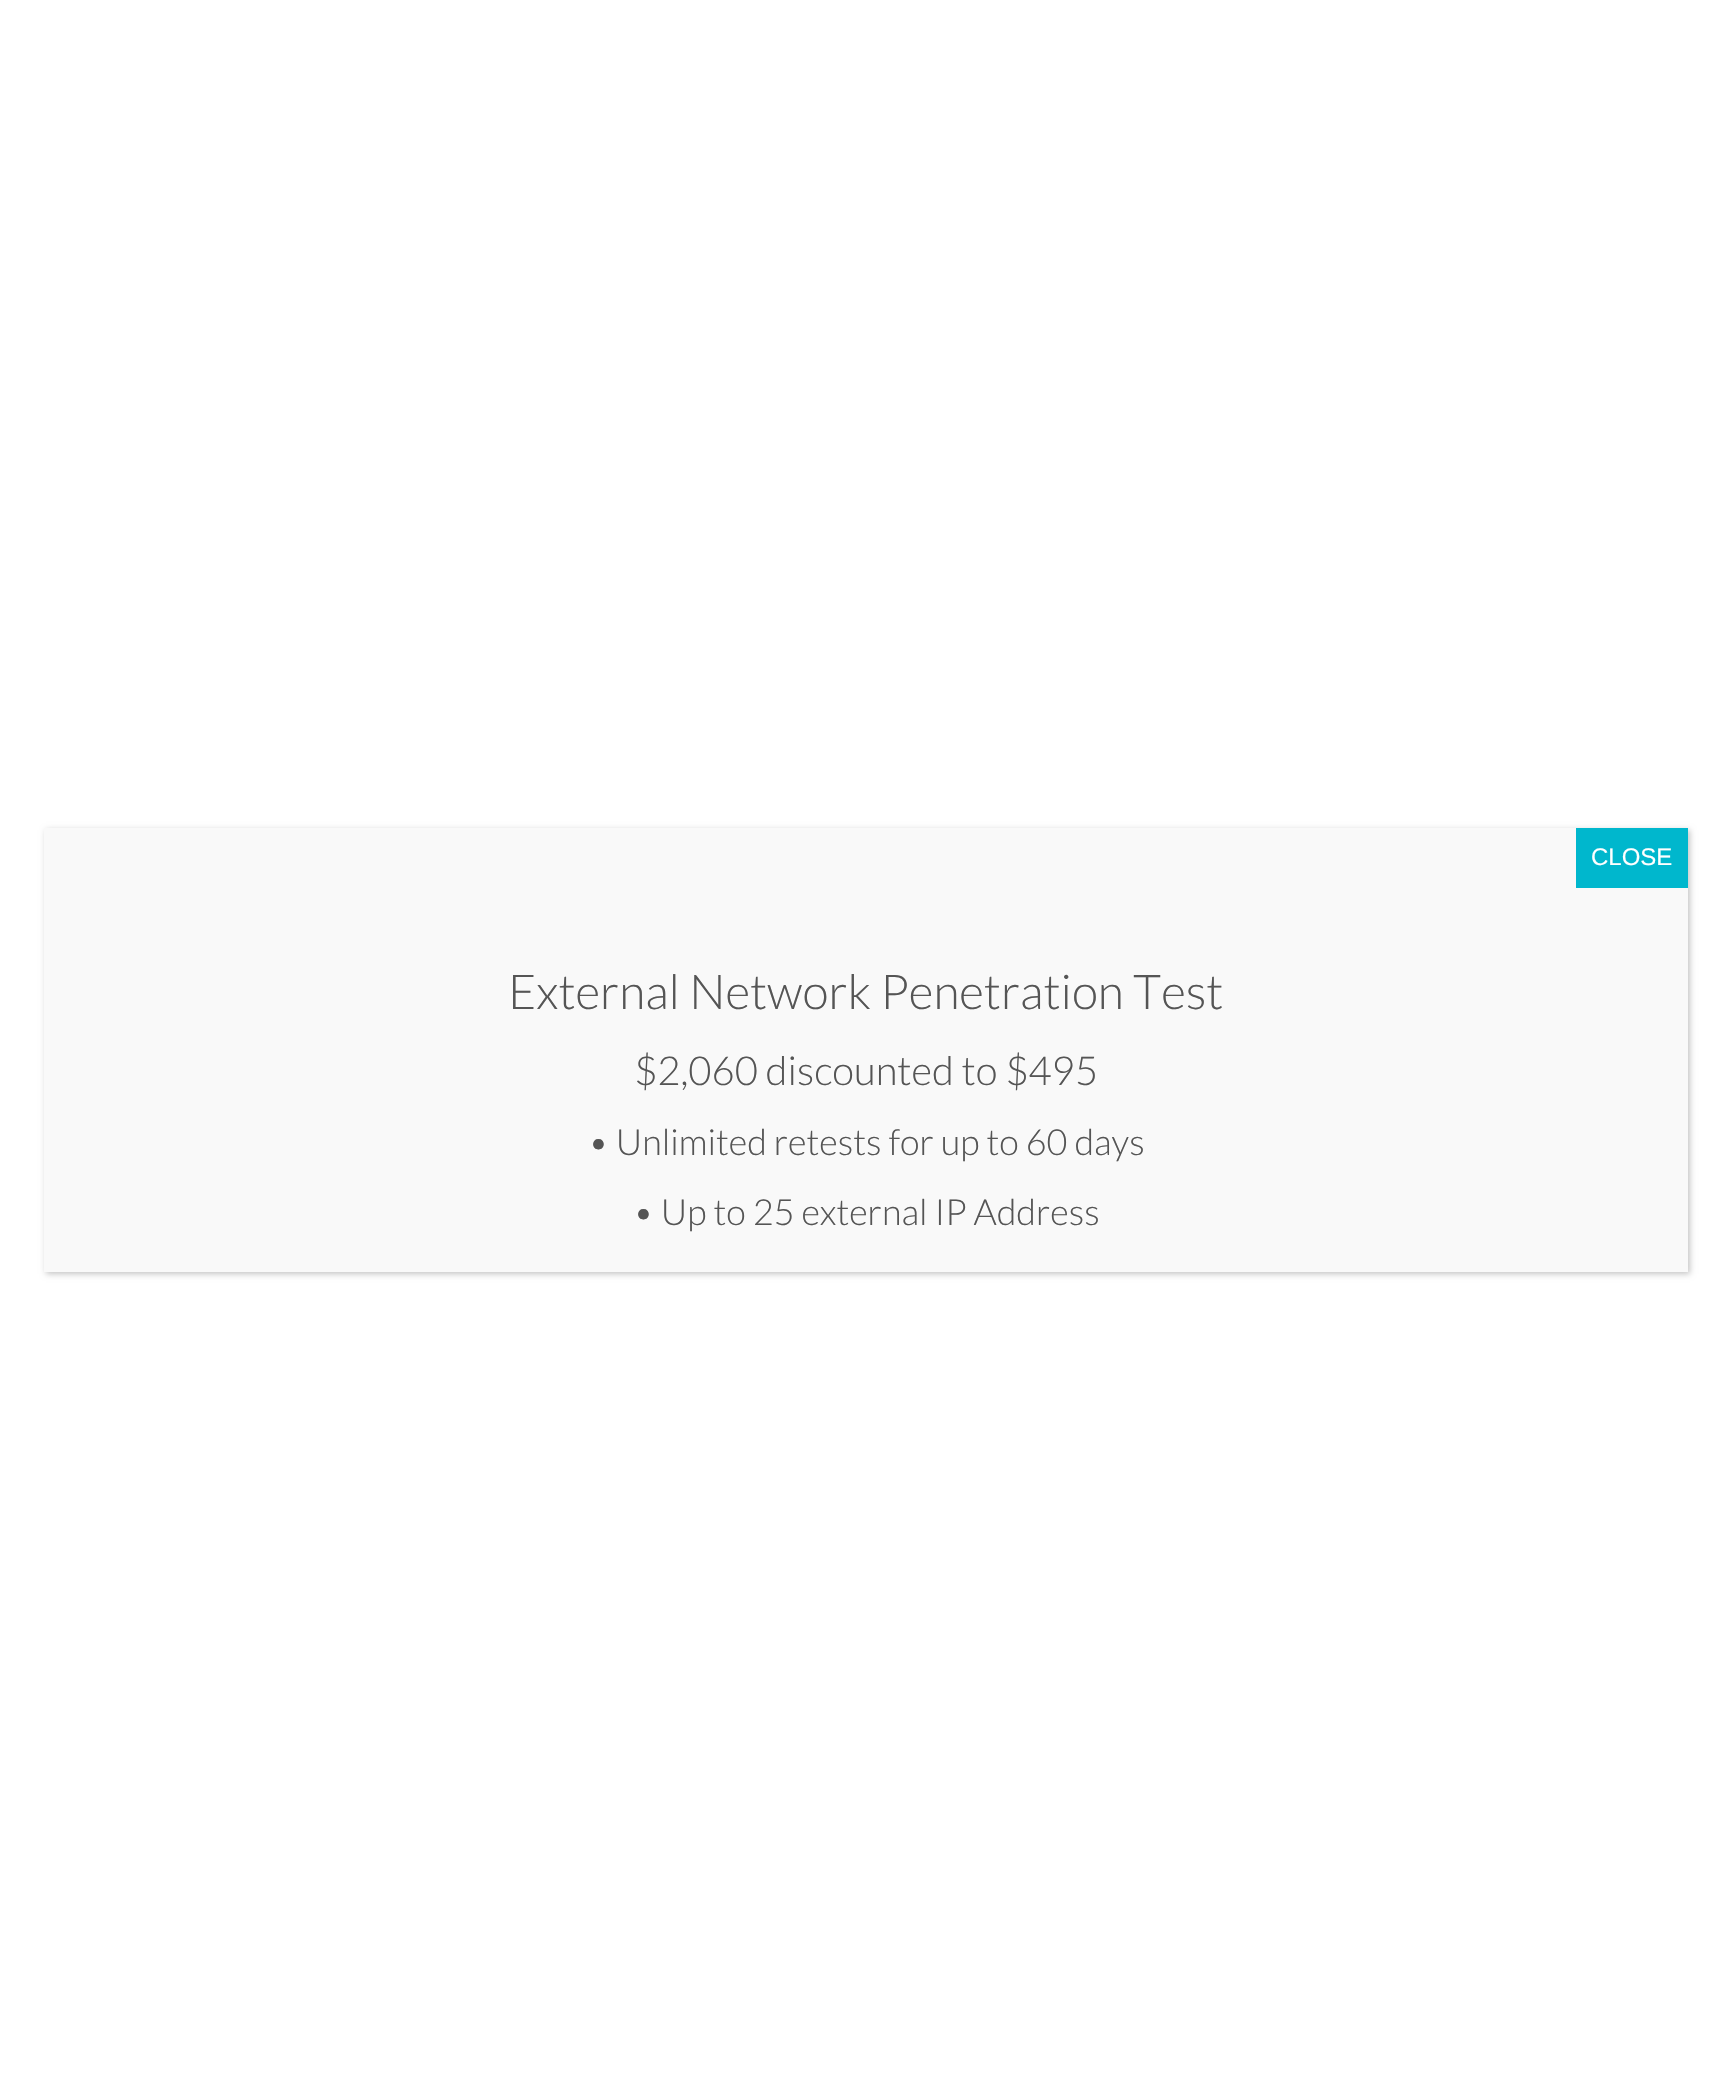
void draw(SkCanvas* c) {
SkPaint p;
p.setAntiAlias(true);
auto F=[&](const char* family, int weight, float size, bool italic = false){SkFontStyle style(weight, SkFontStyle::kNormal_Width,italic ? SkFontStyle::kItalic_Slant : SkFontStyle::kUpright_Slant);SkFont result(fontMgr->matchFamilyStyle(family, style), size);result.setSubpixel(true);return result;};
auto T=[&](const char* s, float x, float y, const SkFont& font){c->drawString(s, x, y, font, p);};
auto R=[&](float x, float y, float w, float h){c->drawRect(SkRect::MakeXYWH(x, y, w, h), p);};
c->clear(0xffffffff);
p.setColor(0x3b020202);
p.setMaskFilter(SkMaskFilter::MakeBlur(kNormal_SkBlurStyle, 3));
c->drawRect(SkRect::MakeXYWH(46,830,1644,444),p);
p.setMaskFilter(nullptr);
p.setColor(0xfff9f9f9);
R(44,828,1644,444);
p.setColor(0xff00b7cd);
R(1576,828,112,60);
auto f1 = F("Liberation Sans",400,24);
p.setColor(0xffffffff);
T("CLOSE",1591,865,f1);
auto f2 = F("Lato",300,48);
p.setColor(0xff555555);
T("External Network Penetration Test",508,1009,f2);
auto f3 = F("Lato",300,40);
T("$2,060 discounted to $495",634,1085,f3);
auto f4 = F("Lato",300,36);
T("• Unlimited retests for up to 60 days",588,1155,f4);
T("• Up to 25 external IP Address",633,1225,f4);
}
